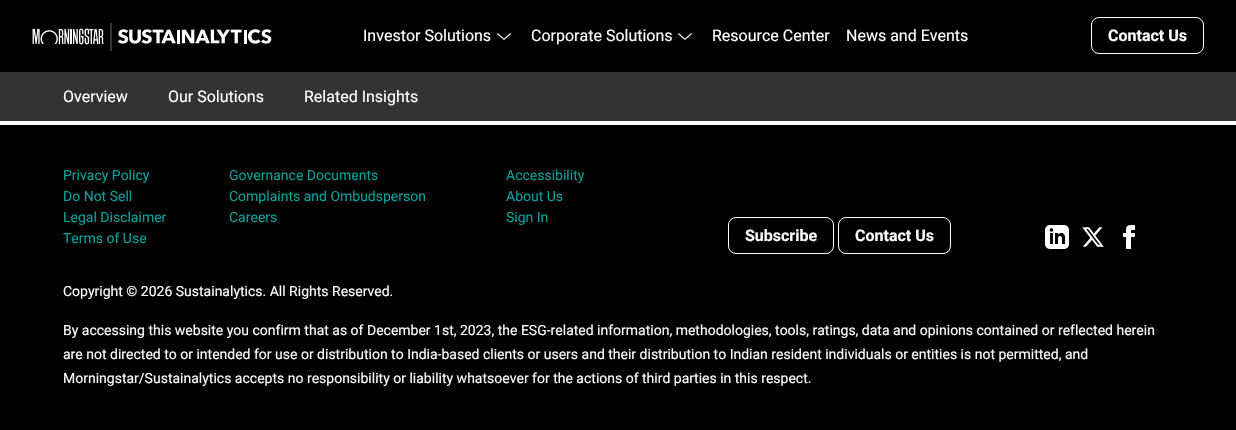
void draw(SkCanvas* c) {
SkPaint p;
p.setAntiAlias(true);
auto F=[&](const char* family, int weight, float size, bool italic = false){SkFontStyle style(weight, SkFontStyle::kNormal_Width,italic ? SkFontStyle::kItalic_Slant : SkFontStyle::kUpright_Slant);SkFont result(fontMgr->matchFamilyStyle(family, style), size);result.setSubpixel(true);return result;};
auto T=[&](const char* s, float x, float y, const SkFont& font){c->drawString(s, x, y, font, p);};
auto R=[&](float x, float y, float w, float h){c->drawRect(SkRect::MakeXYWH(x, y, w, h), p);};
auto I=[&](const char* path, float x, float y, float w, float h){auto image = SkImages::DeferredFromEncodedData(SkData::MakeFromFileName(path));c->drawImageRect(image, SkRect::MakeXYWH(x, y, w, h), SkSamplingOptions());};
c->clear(0xffffffff);
p.setColor(0xff000000);
R(0,0,1236,72);
I("1.png",32,23,240,28);
auto f1 = F("Roboto",400,16);
p.setColor(0xffffffff);
T("Investor Solutions",363,41,f1);
I("2.png",497,33,14,7);
T("Corporate Solutions",531,41,f1);
I("2.png",678,33,14,7);
T("Resource Center",712,41,f1);
T("News and Events",846,41,f1);
p.setStroke(true);
p.setStrokeWidth(1);
c->drawRoundRect(SkRect::MakeXYWH(1091.5,17.5,112,36),7.5,7.5,p);
auto f2 = F("Roboto",700,16);
p.setStroke(false);
T("Contact Us",1108,41,f2);
p.setColor(0xff333333);
R(0,72,1236,49);
p.setColor(0xffffffff);
T("Overview",63,102,f1);
T("Our Solutions",168,102,f1);
T("Related Insights",304,102,f1);
p.setColor(0xff000000);
R(0,125,1236,305);
auto f3 = F("Roboto",400,14);
p.setColor(0xff00a19b);
T("Privacy Policy",63,180,f3);
T("Do Not Sell",63,201,f3);
T("Legal Disclaimer",63,222,f3);
T("Terms of Use",63,243,f3);
T("Governance Documents",229,180,f3);
T("Complaints and Ombudsperson",229,201,f3);
T("Careers",229,222,f3);
T("Accessibility",506,180,f3);
T("About Us",506,201,f3);
T("Sign In",506,222,f3);
p.setStroke(true);
p.setColor(0xffffffff);
c->drawRoundRect(SkRect::MakeXYWH(728.5,217.5,105,36),7.5,7.5,p);
p.setStroke(false);
T("Subscribe",745,241,f2);
p.setStroke(true);
c->drawRoundRect(SkRect::MakeXYWH(838.5,217.5,112,36),7.5,7.5,p);
p.setStroke(false);
T("Contact Us",855,241,f2);
I("3.png",1045,225,24,24);
I("4.png",1082,227,22,20);
I("5.png",1123,225,12,24);
T("Copyright © 2026 Sustainalytics. All Rights Reserved.",63,296,f3);
T("By accessing this website you confirm that as of December 1st, 2023, the ESG-related information, methodologies, tools, ratings, data and opinions contained or reflected herein",63,335,f3);
T("are not directed to or intended for use or distribution to India-based clients or users and their distribution to Indian resident individuals or entities is not permitted, and",63,359,f3);
T("Morningstar/Sustainalytics accepts no responsibility or liability whatsoever for the actions of third parties in this respect.",63,383,f3);
}
